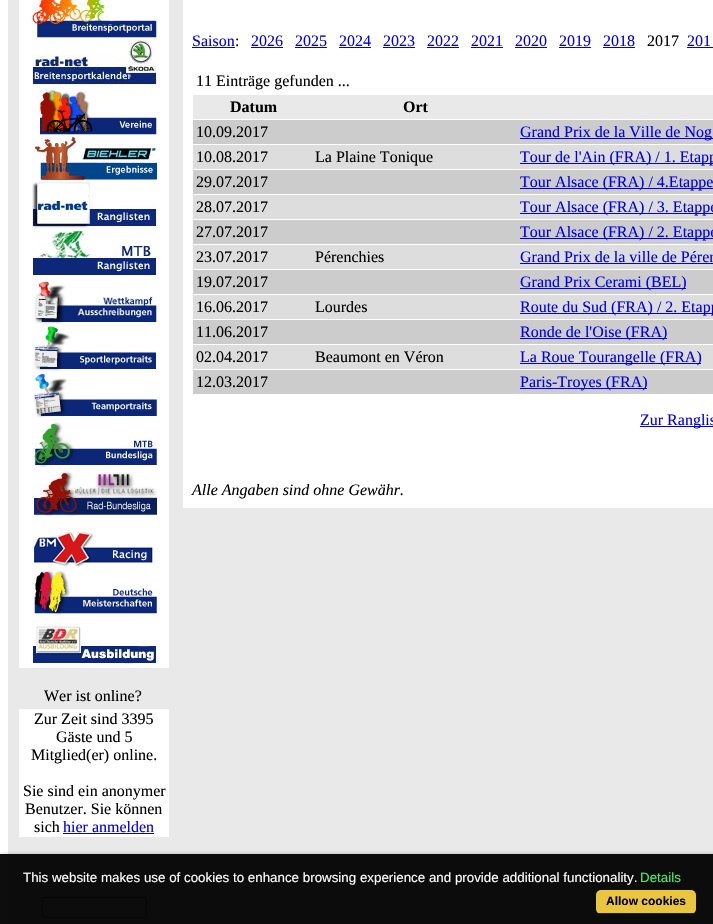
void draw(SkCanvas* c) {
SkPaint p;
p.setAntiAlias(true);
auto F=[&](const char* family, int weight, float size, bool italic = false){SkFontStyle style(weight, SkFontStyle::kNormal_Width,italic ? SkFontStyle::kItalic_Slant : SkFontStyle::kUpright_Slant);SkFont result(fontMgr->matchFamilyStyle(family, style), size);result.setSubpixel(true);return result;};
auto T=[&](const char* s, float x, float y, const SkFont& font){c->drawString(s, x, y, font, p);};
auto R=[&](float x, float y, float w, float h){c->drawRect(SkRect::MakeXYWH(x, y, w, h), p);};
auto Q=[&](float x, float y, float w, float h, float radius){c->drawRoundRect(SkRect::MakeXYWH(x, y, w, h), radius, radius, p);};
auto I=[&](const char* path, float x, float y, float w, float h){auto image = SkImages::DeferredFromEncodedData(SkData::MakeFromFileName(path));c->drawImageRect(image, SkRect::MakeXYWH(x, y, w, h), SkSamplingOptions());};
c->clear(0xffffffff);
p.setColor(0xff0d0d0d);
R(0,854,8,70);
p.setColor(0xffe9e9e9);
R(8,0,705,854);
p.setColor(0xff0c0c0c);
R(8,854,705,70);
p.setColor(0xffffffff);
R(183,0,530,508);
auto f1 = F("Liberation Serif",400,16);
p.setColor(0xff0000ee);
T("Saison",192,46,f1);
p.setColor(0xff000000);
T(":",235,46,f1);
p.setColor(0xff0000ee);
R(192,47,43,1);
T("2026",251,46,f1);
R(251,47,32,1);
T("2025",295,46,f1);
R(295,47,32,1);
T("2024",339,46,f1);
R(339,47,32,1);
T("2023",383,46,f1);
R(383,47,32,1);
T("2022",427,46,f1);
R(427,47,32,1);
T("2021",471,46,f1);
R(471,47,32,1);
T("2020",515,46,f1);
R(515,47,32,1);
T("2019",559,46,f1);
R(559,47,32,1);
T("2018",603,46,f1);
R(603,47,32,1);
p.setColor(0xff000000);
T("2017",647,46,f1);
p.setColor(0xff0000ee);
T("201",687,46,f1);
R(687,47,26,1);
p.setColor(0xff000000);
T("11 Einträge gefunden ...",196,86,f1);
p.setColor(0xffe9e9e9);
R(193,95,520,24);
auto f2 = F("Liberation Serif",700,16);
p.setColor(0xff000000);
T("Datum",230,112,f2);
T("Ort",403,112,f2);
p.setColor(0xffcccccc);
R(193,120,520,24);
p.setColor(0xff000000);
T("10.09.2017",196,137,f1);
p.setColor(0xff0000ee);
R(520,138,193,1);
T("Grand Prix de la Ville de Nog",520,137,f1);
p.setColor(0xffdddddd);
R(193,145,520,24);
p.setColor(0xff000000);
T("10.08.2017",196,162,f1);
T("La Plaine Tonique",315,162,f1);
p.setColor(0xff0000ee);
R(520,163,193,1);
T("Tour de l'Ain (FRA) / 1. Etapp",520,162,f1);
p.setColor(0xffcccccc);
R(193,170,520,24);
p.setColor(0xff000000);
T("29.07.2017",196,187,f1);
p.setColor(0xff0000ee);
R(520,188,193,1);
T("Tour Alsace (FRA) / 4.Etappe",520,187,f1);
p.setColor(0xffdddddd);
R(193,195,520,24);
p.setColor(0xff000000);
T("28.07.2017",196,212,f1);
p.setColor(0xff0000ee);
R(520,213,193,1);
T("Tour Alsace (FRA) / 3. Etappe",520,212,f1);
p.setColor(0xffcccccc);
R(193,220,520,24);
p.setColor(0xff000000);
T("27.07.2017",196,237,f1);
p.setColor(0xff0000ee);
R(520,238,193,1);
T("Tour Alsace (FRA) / 2. Etappe",520,237,f1);
p.setColor(0xffdddddd);
R(193,245,520,24);
p.setColor(0xff000000);
T("23.07.2017",196,262,f1);
T("Pérenchies",315,262,f1);
p.setColor(0xff0000ee);
T("Grand Prix de la ville de Péren",520,262,f1);
R(520,263,193,1);
p.setColor(0xffcccccc);
R(193,270,520,24);
p.setColor(0xff000000);
T("19.07.2017",196,287,f1);
p.setColor(0xff0000ee);
R(520,288,166,1);
T("Grand Prix Cerami (BEL)",520,287,f1);
p.setColor(0xffdddddd);
R(193,295,520,24);
p.setColor(0xff000000);
T("16.06.2017",196,312,f1);
T("Lourdes",315,312,f1);
p.setColor(0xff0000ee);
R(520,313,193,1);
T("Route du Sud (FRA) / 2. Etapp",520,312,f1);
p.setColor(0xffcccccc);
R(193,320,520,24);
p.setColor(0xff000000);
T("11.06.2017",196,337,f1);
p.setColor(0xff0000ee);
R(520,338,147,1);
T("Ronde de l'Oise (FRA)",520,337,f1);
p.setColor(0xffdddddd);
R(193,345,520,24);
p.setColor(0xff000000);
T("02.04.2017",196,362,f1);
T("Beaumont en Véron",315,362,f1);
p.setColor(0xff0000ee);
R(520,363,181,1);
T("La Roue Tourangelle (FRA)",520,362,f1);
p.setColor(0xffcccccc);
R(193,370,520,24);
p.setColor(0xff000000);
T("12.03.2017",196,387,f1);
p.setColor(0xff0000ee);
R(520,388,127,1);
T("Paris-Troyes (FRA)",520,387,f1);
R(640,426,73,1);
T("Zur Ranglis",640,425,f1);
auto f3 = F("Liberation Serif",400,16,true);
p.setColor(0xff000000);
T("Alle Angaben sind ohne Gewähr.",192,495,f3);
p.setColor(0xffffffff);
R(19,0,150,668);
I("1.png",32,0,125,39);
I("2.png",32,39,125,48);
I("3.png",39,89,118,46);
I("4.png",32,136,125,45);
I("5.png",32,181,125,48);
I("6.png",33,230,123,45);
I("7.png",33,281,124,44);
I("8.png",33,326,123,46);
I("9.png",33,374,124,44);
I("10.png",33,421,124,47);
I("11.png",32,469,125,48);
I("12.png",34,531,119,36);
I("13.png",32,570,125,46);
I("14.png",33,626,124,39);
p.setColor(0xff000000);
T("Wer ist online?",44,701,f1);
p.setColor(0xffffffff);
R(19,709,150,128);
p.setColor(0xff000000);
T("Zur Zeit sind 3395",34,724,f1);
T("Gäste und 5",56,742,f1);
T("Mitglied(er) online.",31,760,f1);
T("Sie sind ein anonymer",23,796,f1);
T("Benutzer. Sie können",25,814,f1);
T("sich",34,832,f1);
p.setColor(0xff0000ee);
T("hier anmelden",63,832,f1);
R(63,833,91,1);
p.setStroke(true);
p.setStrokeWidth(1);
p.setColor(0xff060606);
c->drawRoundRect(SkRect::MakeXYWH(42.5,897.5,104,20),1.5,1.5,p);
c->save();
c->clipRect(SkRect::MakeXYWH(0,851,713,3));
p.setStroke(false);
p.setColor(0x99000000);
p.setMaskFilter(SkMaskFilter::MakeBlur(kNormal_SkBlurStyle, 2.5));
c->drawRect(SkRect::MakeXYWH(2,856,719,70),p);
p.setMaskFilter(nullptr);
c->restore();
auto f4 = F("Liberation Sans",400,13.35);
p.setColor(0xffffffff);
T("This website makes use of cookies to enhance browsing experience and provide additional functionality.",23,882,f4);
p.setColor(0xff4bec69);
T("Details",640,882,f4);
p.setColor(0xffeac53e);
Q(596,890,100,24,5);
p.setColor(0xff222222);
R(599,913,95,1);
auto f5 = F("Liberation Sans",700,12);
p.setColor(0xff000000);
T("Allow cookies",606,905,f5);
}
